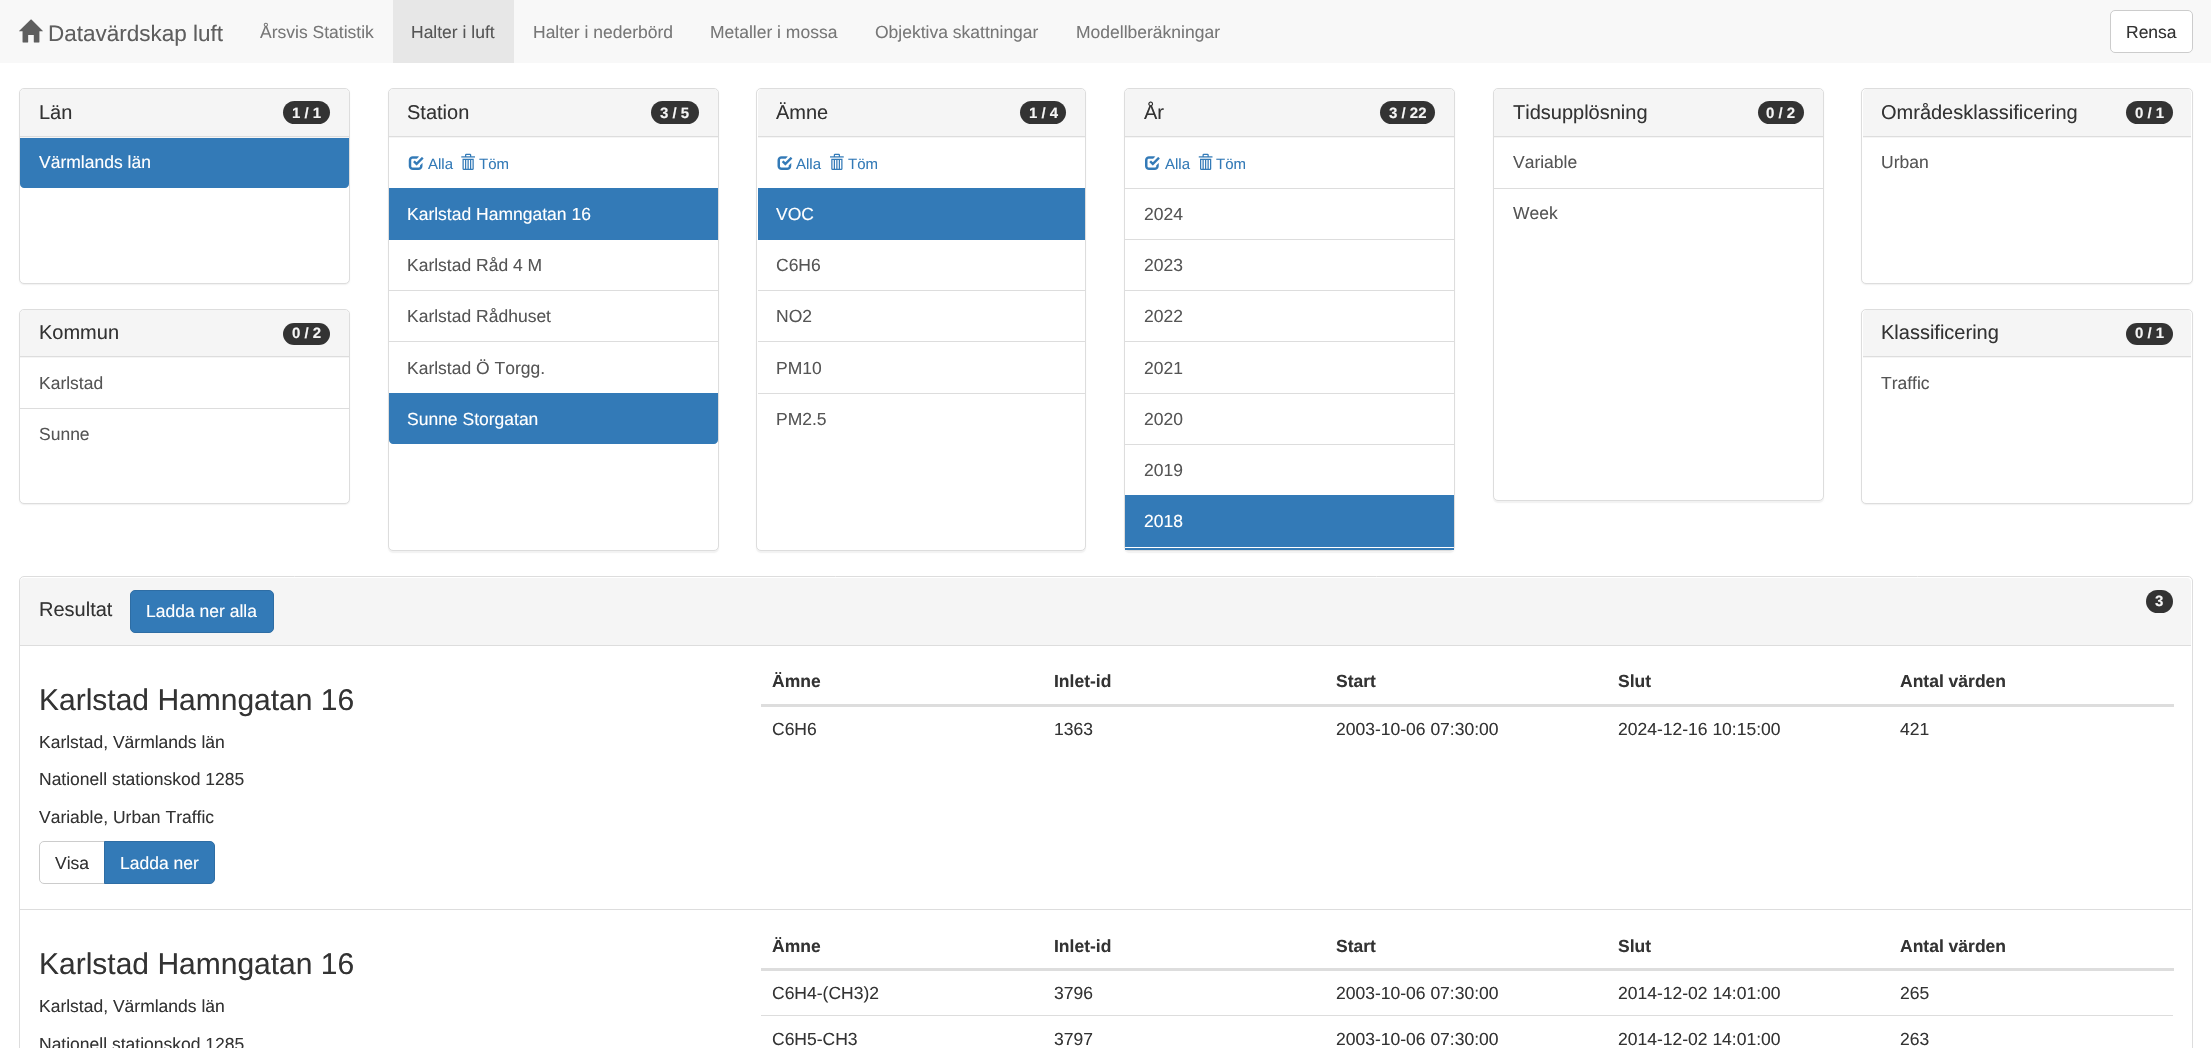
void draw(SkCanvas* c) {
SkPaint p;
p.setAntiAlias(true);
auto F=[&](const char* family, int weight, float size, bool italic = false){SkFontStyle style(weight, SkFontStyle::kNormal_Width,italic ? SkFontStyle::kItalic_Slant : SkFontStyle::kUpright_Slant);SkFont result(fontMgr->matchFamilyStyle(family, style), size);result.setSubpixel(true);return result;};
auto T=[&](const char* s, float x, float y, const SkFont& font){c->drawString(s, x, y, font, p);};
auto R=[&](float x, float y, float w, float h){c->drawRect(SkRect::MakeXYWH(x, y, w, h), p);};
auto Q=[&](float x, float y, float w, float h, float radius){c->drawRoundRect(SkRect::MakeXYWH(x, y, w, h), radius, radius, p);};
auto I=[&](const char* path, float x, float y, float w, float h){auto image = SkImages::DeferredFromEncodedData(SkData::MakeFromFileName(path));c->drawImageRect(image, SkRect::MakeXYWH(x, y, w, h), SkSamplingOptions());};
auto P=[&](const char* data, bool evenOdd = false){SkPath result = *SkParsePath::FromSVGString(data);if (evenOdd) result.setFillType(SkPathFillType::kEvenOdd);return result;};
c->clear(0xffffffff);
p.setColor(0xfff8f8f8);
R(0,0,2211,63);
I("1.png",19,19,24,24);
auto f1 = F("Liberation Sans",400,22.5);
p.setColor(0xff5e5e5e);
T("Datavärdskap luft",48,41,f1);
auto f2 = F("Liberation Sans",400,17.5);
p.setColor(0xff777777);
T("Årsvis Statistik",260,38,f2);
p.setColor(0xffe7e7e7);
R(393,0,121,63);
p.setColor(0xff555555);
T("Halter i luft",411,38,f2);
p.setColor(0xff777777);
T("Halter i nederbörd",533,38,f2);
T("Metaller i mossa",710,38,f2);
T("Objektiva skattningar",875,38,f2);
T("Modellberäkningar",1076,38,f2);
p.setColor(0xffffffff);
c->drawRoundRect(SkRect::MakeXYWH(2110.5,10.5,82,42),4.5,4.5,p);
p.setStroke(true);
p.setStrokeWidth(1);
p.setColor(0xffcccccc);
c->drawRoundRect(SkRect::MakeXYWH(2110.5,10.5,82,42),4.5,4.5,p);
p.setStroke(false);
p.setColor(0xff333333);
T("Rensa",2126,38,f2);
p.setColor(0x0d000000);
p.setMaskFilter(SkMaskFilter::MakeBlur(kNormal_SkBlurStyle, .5));
c->drawRoundRect(SkRect::MakeXYWH(19,89,331,196),5,5,p);
p.setMaskFilter(nullptr);
p.setColor(0xffffffff);
c->drawRoundRect(SkRect::MakeXYWH(19.5,88.5,330,195),4.5,4.5,p);
p.setStroke(true);
p.setColor(0xffdddddd);
c->drawRoundRect(SkRect::MakeXYWH(19.5,88.5,330,195),4.5,4.5,p);
p.setStroke(false);
p.setColor(0xfff5f5f5);
c->drawPath(P("M24 89h321c2 0 4 2 4 4v45h-329v-45c0-2 2-4 4-4z"),p);
p.setColor(0xffdddddd);
R(20,136,329,1);
auto f3 = F("Liberation Sans",400,20);
p.setColor(0xff333333);
T("Län",39,119,f3);
Q(283,101,47,23,11.5);
auto f4 = F("Liberation Sans",700,15);
p.setColor(0xfff5f5f5);
T("1 / 1",292,118,f4);
p.setColor(0xff337ab7);
c->drawPath(P("M20 138h329v46c0 2-2 4-4 4h-321c-2 0-4-2-4-4z"),p);
p.setColor(0xffffffff);
T("Värmlands län",39,168,f2);
p.setColor(0x0d000000);
p.setMaskFilter(SkMaskFilter::MakeBlur(kNormal_SkBlurStyle, .5));
c->drawRoundRect(SkRect::MakeXYWH(19,310,331,195),5,5,p);
p.setMaskFilter(nullptr);
p.setColor(0xffffffff);
c->drawRoundRect(SkRect::MakeXYWH(19.5,309.5,330,194),4.5,4.5,p);
p.setStroke(true);
p.setColor(0xffdddddd);
c->drawRoundRect(SkRect::MakeXYWH(19.5,309.5,330,194),4.5,4.5,p);
p.setStroke(false);
p.setColor(0xfff5f5f5);
c->drawPath(P("M24 310h321c2 0 4 2 4 4v44h-329v-44c0-2 2-4 4-4z"),p);
p.setColor(0xffdddddd);
R(20,356,329,1);
p.setColor(0xff333333);
T("Kommun",39,339,f3);
Q(283,323,47,22,11);
p.setColor(0xfff5f5f5);
T("0 / 2",292,338,f4);
p.setColor(0xff555555);
T("Karlstad",39,389,f2);
p.setColor(0xffdddddd);
R(20,408,329,1);
p.setColor(0xff555555);
T("Sunne",39,440,f2);
p.setColor(0x0d000000);
p.setMaskFilter(SkMaskFilter::MakeBlur(kNormal_SkBlurStyle, .5));
c->drawRoundRect(SkRect::MakeXYWH(388,89,331,464),5,5,p);
p.setMaskFilter(nullptr);
p.setColor(0xffffffff);
c->drawRoundRect(SkRect::MakeXYWH(388.5,88.5,330,462),4.5,4.5,p);
p.setStroke(true);
p.setColor(0xffdddddd);
c->drawRoundRect(SkRect::MakeXYWH(388.5,88.5,330,462),4.5,4.5,p);
p.setStroke(false);
p.setColor(0xfff5f5f5);
c->drawPath(P("M393 89h321c2 0 4 2 4 4v45h-329v-45c0-2 2-4 4-4z"),p);
p.setColor(0xffdddddd);
R(389,136,329,1);
p.setColor(0xff333333);
T("Station",407,119,f3);
Q(651,101,48,23,11.5);
p.setColor(0xfff5f5f5);
T("3 / 5",660,118,f4);
I("2.png",408,156,16,14);
auto f5 = F("Liberation Sans",400,15);
p.setColor(0xff337ab7);
T("Alla",428,169,f5);
I("3.png",461,153,14,17);
T("Töm",479,169,f5);
R(389,188,329,52);
p.setColor(0xffffffff);
T("Karlstad Hamngatan 16",407,220,f2);
p.setColor(0xffdddddd);
R(389,290,329,1);
p.setColor(0xff555555);
T("Karlstad Råd 4 M",407,271,f2);
p.setColor(0xffdddddd);
R(389,341,329,1);
p.setColor(0xff555555);
T("Karlstad Rådhuset",407,322,f2);
T("Karlstad Ö Torgg.",407,374,f2);
p.setColor(0xff337ab7);
c->drawPath(P("M389 393h329v47c0 2-2 4-4 4h-321c-2 0-4-2-4-4z"),p);
p.setColor(0xffffffff);
T("Sunne Storgatan",407,425,f2);
p.setColor(0x0d000000);
p.setMaskFilter(SkMaskFilter::MakeBlur(kNormal_SkBlurStyle, .5));
c->drawRoundRect(SkRect::MakeXYWH(756,89,330,464),5,5,p);
p.setMaskFilter(nullptr);
p.setColor(0xffffffff);
c->drawRoundRect(SkRect::MakeXYWH(756.5,88.5,329,462),4.5,4.5,p);
p.setStroke(true);
p.setColor(0xffdddddd);
c->drawRoundRect(SkRect::MakeXYWH(756.5,88.5,329,462),4.5,4.5,p);
p.setStroke(false);
p.setColor(0xfff5f5f5);
c->drawPath(P("M762 89h319c2 0 4 2 4 4v45h-327v-45c0-2 2-4 4-4z"),p);
p.setColor(0xffdddddd);
R(758,136,327,1);
p.setColor(0xff333333);
T("Ämne",776,119,f3);
Q(1020,101,46,23,11.5);
p.setColor(0xfff5f5f5);
T("1 / 4",1029,118,f4);
I("4.png",777,156,16,14);
p.setColor(0xff337ab7);
T("Alla",796,169,f5);
I("5.png",830,153,14,17);
T("Töm",848,169,f5);
R(758,188,327,52);
p.setColor(0xffffffff);
T("VOC",776,220,f2);
p.setColor(0xffdddddd);
R(758,290,327,1);
p.setColor(0xff555555);
T("C6H6",776,271,f2);
p.setColor(0xffdddddd);
R(758,341,327,1);
p.setColor(0xff555555);
T("NO2",776,322,f2);
T("PM10",776,374,f2);
p.setColor(0xffdddddd);
R(758,393,327,1);
p.setColor(0xff555555);
T("PM2.5",776,425,f2);
p.setColor(0x0d000000);
p.setMaskFilter(SkMaskFilter::MakeBlur(kNormal_SkBlurStyle, .5));
c->drawRoundRect(SkRect::MakeXYWH(1124,89,331,464),5,5,p);
p.setMaskFilter(nullptr);
p.setColor(0xffffffff);
c->drawRoundRect(SkRect::MakeXYWH(1124.5,88.5,330,462),4.5,4.5,p);
p.setStroke(true);
p.setColor(0xffdddddd);
c->drawRoundRect(SkRect::MakeXYWH(1124.5,88.5,330,462),4.5,4.5,p);
p.setStroke(false);
p.setColor(0xfff5f5f5);
c->drawPath(P("M1129 89h321c2 0 4 2 4 4v45h-329v-45c0-2 2-4 4-4z"),p);
p.setColor(0xffdddddd);
R(1125,136,329,1);
p.setColor(0xff333333);
T("År",1144,119,f3);
Q(1380,101,55,23,11.5);
p.setColor(0xfff5f5f5);
T("3 / 22",1389,118,f4);
I("6.png",1145,156,15,14);
p.setColor(0xff337ab7);
T("Alla",1165,169,f5);
I("7.png",1198,153,15,17);
T("Töm",1216,169,f5);
p.setColor(0xffdddddd);
R(1125,188,329,1);
R(1125,239,329,1);
p.setColor(0xff555555);
T("2024",1144,220,f2);
p.setColor(0xffdddddd);
R(1125,290,329,1);
p.setColor(0xff555555);
T("2023",1144,271,f2);
p.setColor(0xffdddddd);
R(1125,341,329,1);
p.setColor(0xff555555);
T("2022",1144,322,f2);
p.setColor(0xffdddddd);
R(1125,393,329,1);
p.setColor(0xff555555);
T("2021",1144,374,f2);
p.setColor(0xffdddddd);
R(1125,444,329,1);
p.setColor(0xff555555);
T("2020",1144,425,f2);
T("2019",1144,476,f2);
p.setColor(0xff337ab7);
R(1125,495,329,52);
p.setColor(0xffffffff);
T("2018",1144,527,f2);
p.setColor(0xff337ab7);
R(1125,548,329,2);
p.setColor(0x0d000000);
p.setMaskFilter(SkMaskFilter::MakeBlur(kNormal_SkBlurStyle, .5));
c->drawRoundRect(SkRect::MakeXYWH(1493,89,331,414),5,5,p);
p.setMaskFilter(nullptr);
p.setColor(0xffffffff);
c->drawRoundRect(SkRect::MakeXYWH(1493.5,88.5,330,412),4.5,4.5,p);
p.setStroke(true);
p.setColor(0xffdddddd);
c->drawRoundRect(SkRect::MakeXYWH(1493.5,88.5,330,412),4.5,4.5,p);
p.setStroke(false);
p.setColor(0xfff5f5f5);
c->drawPath(P("M1498 89h321c2 0 4 2 4 4v45h-329v-45c0-2 2-4 4-4z"),p);
p.setColor(0xffdddddd);
R(1494,136,329,1);
p.setColor(0xff333333);
T("Tidsupplösning",1513,119,f3);
Q(1758,101,46,23,11.5);
p.setColor(0xfff5f5f5);
T("0 / 2",1766,118,f4);
p.setColor(0xff555555);
T("Variable",1513,168,f2);
p.setColor(0xffdddddd);
R(1494,188,329,1);
p.setColor(0xff555555);
T("Week",1513,219,f2);
p.setColor(0x0d000000);
p.setMaskFilter(SkMaskFilter::MakeBlur(kNormal_SkBlurStyle, .5));
c->drawRoundRect(SkRect::MakeXYWH(1861,89,332,196),5,5,p);
p.setMaskFilter(nullptr);
p.setColor(0xffffffff);
c->drawRoundRect(SkRect::MakeXYWH(1861.5,88.5,331,195),4.5,4.5,p);
p.setStroke(true);
p.setColor(0xffdddddd);
c->drawRoundRect(SkRect::MakeXYWH(1861.5,88.5,331,195),4.5,4.5,p);
p.setStroke(false);
p.setColor(0xfff5f5f5);
c->drawPath(P("M1867 89h320c2 0 4 2 4 4v45h-328v-45c0-2 2-4 4-4z"),p);
p.setColor(0xffdddddd);
R(1863,136,328,1);
p.setColor(0xff333333);
T("Områdesklassificering",1881,119,f3);
Q(2126,101,47,23,11.5);
p.setColor(0xfff5f5f5);
T("0 / 1",2135,118,f4);
p.setColor(0xff555555);
T("Urban",1881,168,f2);
p.setColor(0x0d000000);
p.setMaskFilter(SkMaskFilter::MakeBlur(kNormal_SkBlurStyle, .5));
c->drawRoundRect(SkRect::MakeXYWH(1861,310,332,195),5,5,p);
p.setMaskFilter(nullptr);
p.setColor(0xffffffff);
c->drawRoundRect(SkRect::MakeXYWH(1861.5,309.5,331,194),4.5,4.5,p);
p.setStroke(true);
p.setColor(0xffdddddd);
c->drawRoundRect(SkRect::MakeXYWH(1861.5,309.5,331,194),4.5,4.5,p);
p.setStroke(false);
p.setColor(0xfff5f5f5);
c->drawPath(P("M1867 310h320c2 0 4 2 4 4v44h-328v-44c0-2 2-4 4-4z"),p);
p.setColor(0xffdddddd);
R(1863,356,328,1);
p.setColor(0xff333333);
T("Klassificering",1881,339,f3);
Q(2126,323,47,22,11);
p.setColor(0xfff5f5f5);
T("0 / 1",2135,338,f4);
p.setColor(0xff555555);
T("Traffic",1881,389,f2);
p.setStroke(true);
p.setColor(0xffdddddd);
c->drawRoundRect(SkRect::MakeXYWH(19.5,576.5,2173,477),4.5,4.5,p);
p.setStroke(false);
p.setColor(0xfff5f5f5);
c->drawPath(P("M24 578h2163c2 0 4 2 4 4v64h-2171v-64c0-2 2-4 4-4z"),p);
p.setColor(0xffdddddd);
R(20,645,2171,1);
p.setColor(0xff333333);
T("Resultat",39,616,f3);
p.setColor(0xff337ab7);
c->drawRoundRect(SkRect::MakeXYWH(130.5,590.5,143,42),4.5,4.5,p);
p.setStroke(true);
p.setColor(0xff2e6da4);
c->drawRoundRect(SkRect::MakeXYWH(130.5,590.5,143,42),4.5,4.5,p);
p.setStroke(false);
p.setColor(0xffffffff);
T("Ladda ner alla",146,617,f2);
p.setColor(0xff333333);
Q(2146,590,27,23,11.5);
p.setColor(0xfff5f5f5);
T("3",2155,606,f4);
p.setColor(0xffdddddd);
R(20,909,2171,1);
auto f6 = F("Liberation Sans",400,30);
p.setColor(0xff333333);
T("Karlstad Hamngatan 16",39,710,f6);
T("Karlstad, Värmlands län",39,748,f2);
T("Nationell stationskod 1285",39,785,f2);
T("Variable, Urban Traffic",39,823,f2);
p.setStroke(true);
p.setColor(0xffcccccc);
c->drawPath(P("M44 841.5h60.5v42h-60.5c-2.5 0-4.5-2-4.5-4.5v-33c0-2.5 2-4.5 4.5-4.5z"),p);
p.setStroke(false);
p.setColor(0xff333333);
T("Visa",55,869,f2);
p.setColor(0xff337ab7);
c->drawPath(P("M104.5 841.5h105.5c2.5 0 4.5 2 4.5 4.5v33c0 2.5-2 4.5-4.5 4.5h-105.5z"),p);
p.setStroke(true);
p.setColor(0xff2e6da4);
c->drawPath(P("M104.5 841.5h105.5c2.5 0 4.5 2 4.5 4.5v33c0 2.5-2 4.5-4.5 4.5h-105.5z"),p);
p.setStroke(false);
p.setColor(0xffffffff);
T("Ladda ner",120,869,f2);
auto f7 = F("Liberation Sans",700,17.5);
p.setColor(0xff333333);
T("Ämne",772,687,f7);
T("Inlet-id",1054,687,f7);
T("Start",1336,687,f7);
T("Slut",1618,687,f7);
p.setColor(0xffdddddd);
R(761,704,1413,3);
p.setColor(0xff333333);
T("Antal värden",1900,687,f7);
T("C6H6",772,735,f2);
T("1363",1054,735,f2);
T("2003-10-06 07:30:00",1336,735,f2);
T("2024-12-16 10:15:00",1618,735,f2);
T("421",1900,735,f2);
T("Karlstad Hamngatan 16",39,974,f6);
T("Karlstad, Värmlands län",39,1012,f2);
T("Nationell stationskod 1285",39,1050,f2);
T("Ämne",772,952,f7);
T("Inlet-id",1054,952,f7);
T("Start",1336,952,f7);
T("Slut",1618,952,f7);
p.setColor(0xffdddddd);
R(761,968,1413,3);
p.setColor(0xff333333);
T("Antal värden",1900,952,f7);
T("C6H4-(CH3)2",772,999,f2);
T("3796",1054,999,f2);
T("2003-10-06 07:30:00",1336,999,f2);
T("2014-12-02 14:01:00",1618,999,f2);
T("265",1900,999,f2);
T("C6H5-CH3",772,1045,f2);
T("3797",1054,1045,f2);
T("2003-10-06 07:30:00",1336,1045,f2);
T("2014-12-02 14:01:00",1618,1045,f2);
p.setColor(0xffdddddd);
R(761,1015,1412,1);
p.setColor(0xff333333);
T("263",1900,1045,f2);
}
